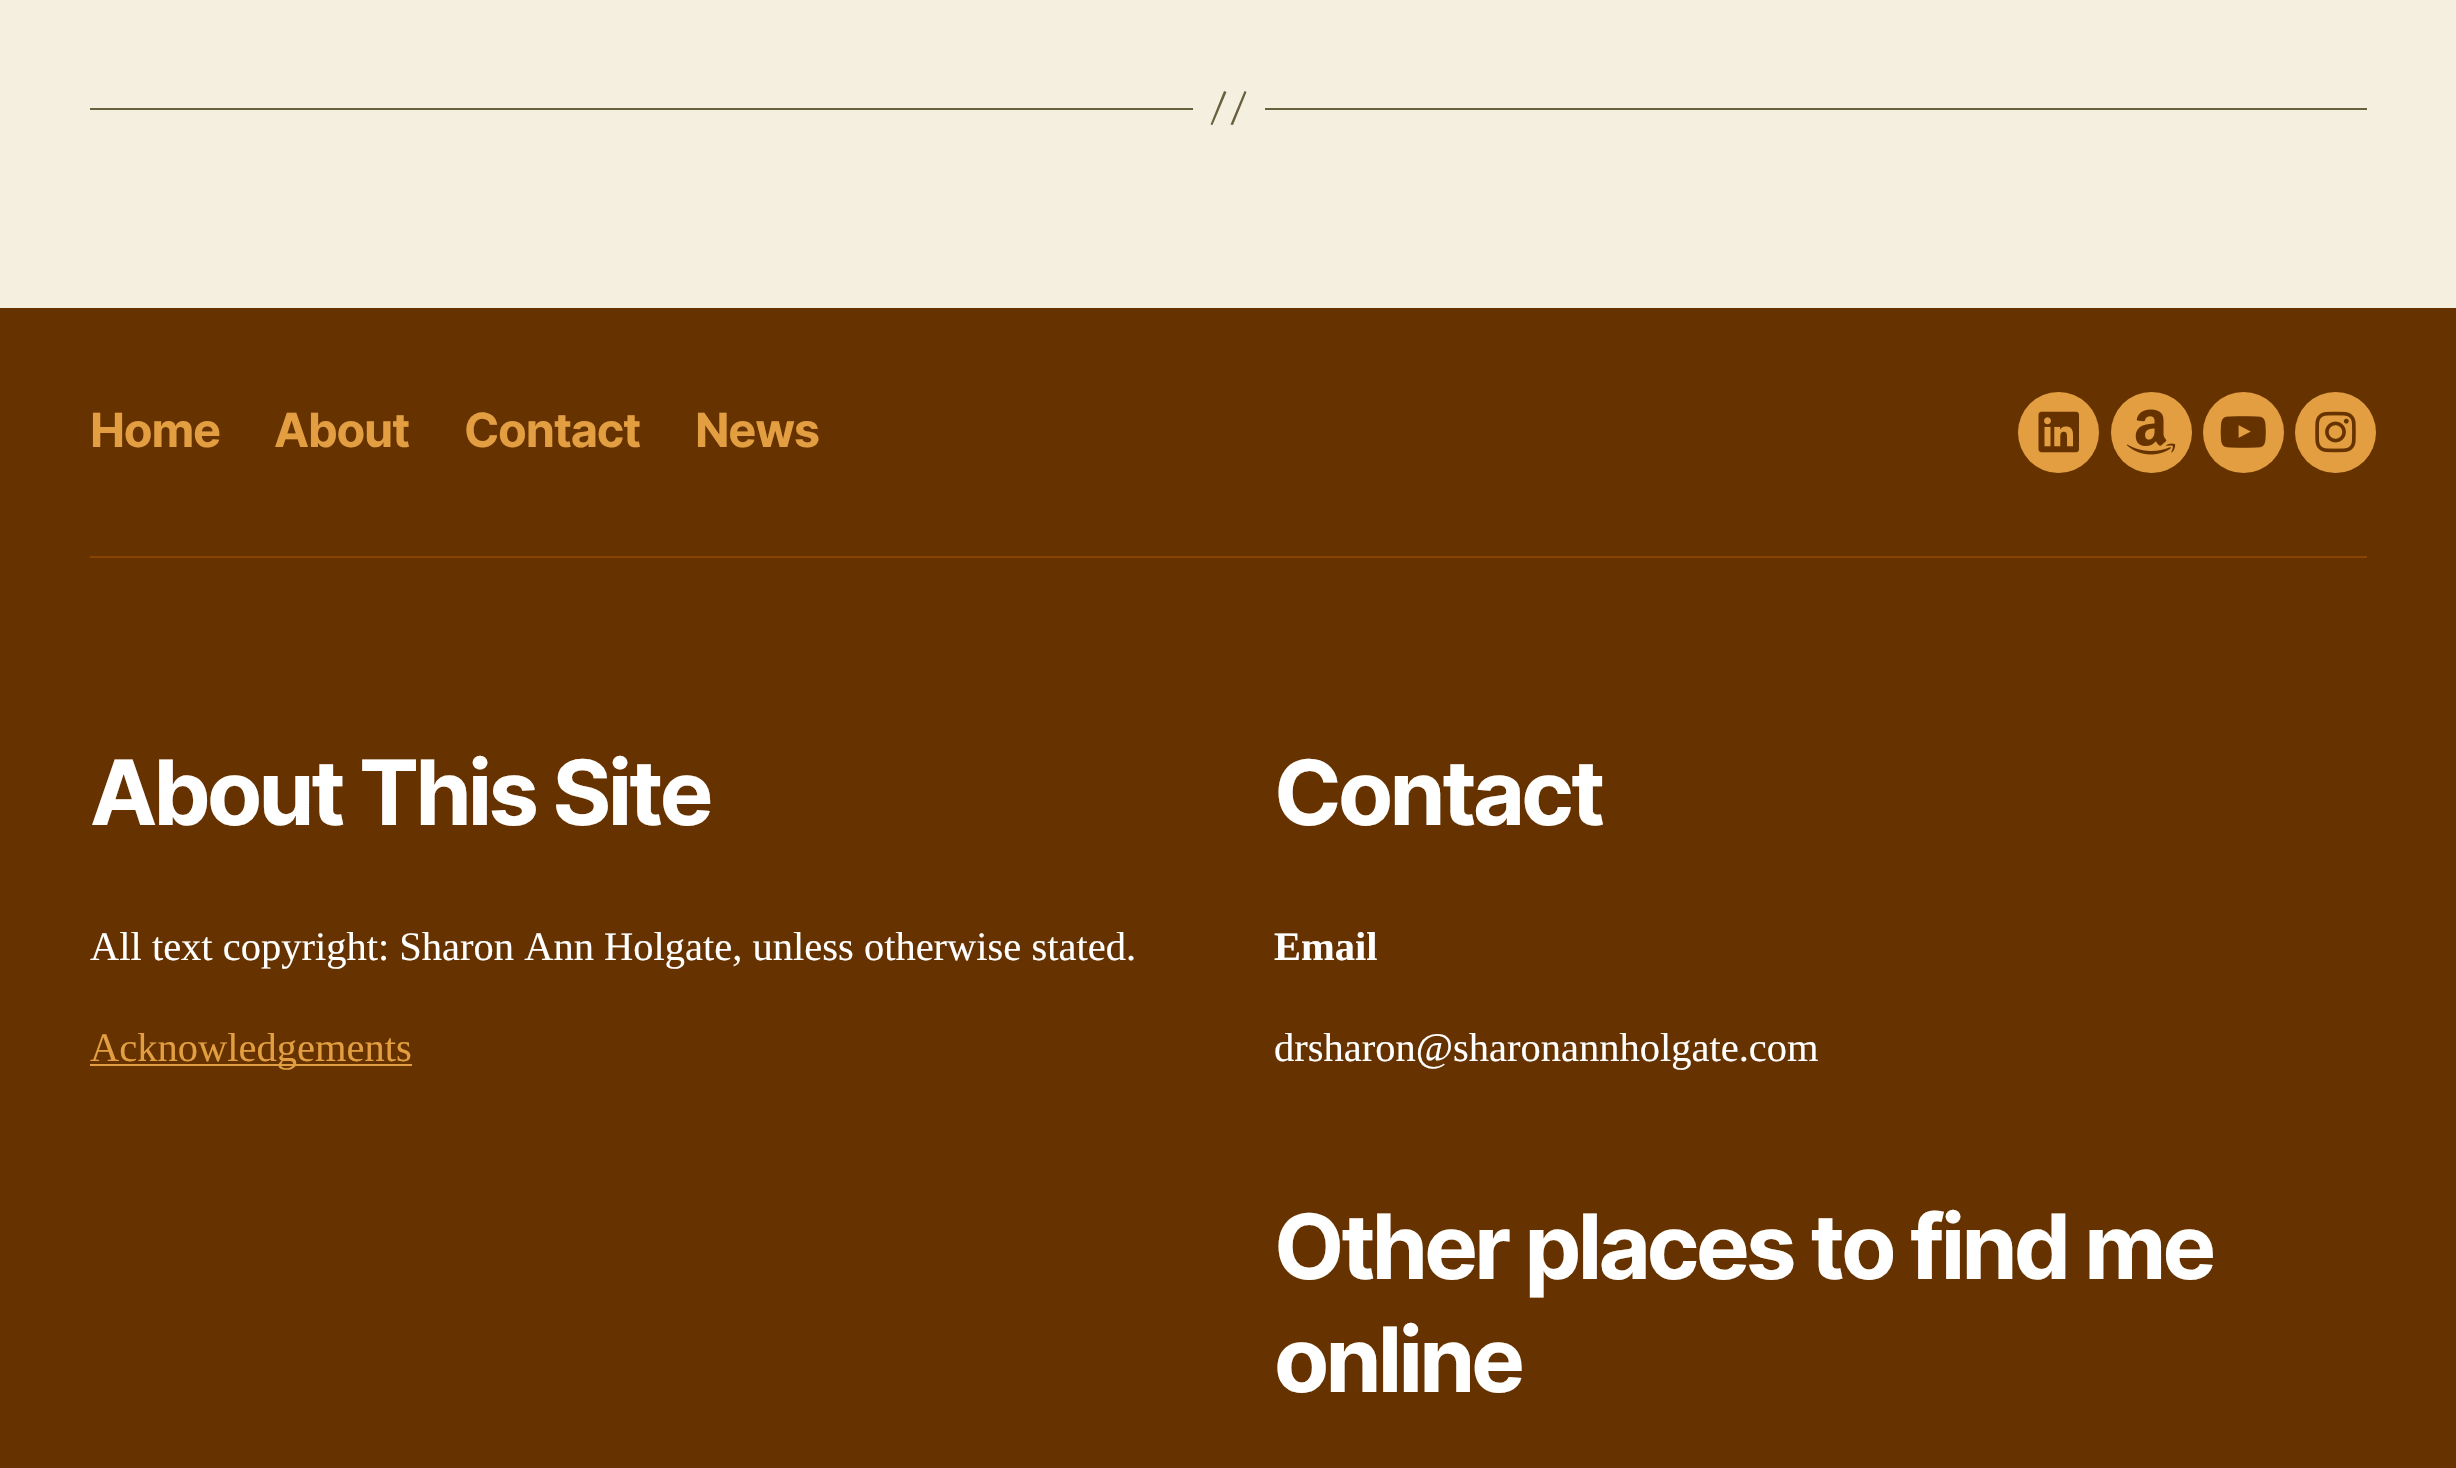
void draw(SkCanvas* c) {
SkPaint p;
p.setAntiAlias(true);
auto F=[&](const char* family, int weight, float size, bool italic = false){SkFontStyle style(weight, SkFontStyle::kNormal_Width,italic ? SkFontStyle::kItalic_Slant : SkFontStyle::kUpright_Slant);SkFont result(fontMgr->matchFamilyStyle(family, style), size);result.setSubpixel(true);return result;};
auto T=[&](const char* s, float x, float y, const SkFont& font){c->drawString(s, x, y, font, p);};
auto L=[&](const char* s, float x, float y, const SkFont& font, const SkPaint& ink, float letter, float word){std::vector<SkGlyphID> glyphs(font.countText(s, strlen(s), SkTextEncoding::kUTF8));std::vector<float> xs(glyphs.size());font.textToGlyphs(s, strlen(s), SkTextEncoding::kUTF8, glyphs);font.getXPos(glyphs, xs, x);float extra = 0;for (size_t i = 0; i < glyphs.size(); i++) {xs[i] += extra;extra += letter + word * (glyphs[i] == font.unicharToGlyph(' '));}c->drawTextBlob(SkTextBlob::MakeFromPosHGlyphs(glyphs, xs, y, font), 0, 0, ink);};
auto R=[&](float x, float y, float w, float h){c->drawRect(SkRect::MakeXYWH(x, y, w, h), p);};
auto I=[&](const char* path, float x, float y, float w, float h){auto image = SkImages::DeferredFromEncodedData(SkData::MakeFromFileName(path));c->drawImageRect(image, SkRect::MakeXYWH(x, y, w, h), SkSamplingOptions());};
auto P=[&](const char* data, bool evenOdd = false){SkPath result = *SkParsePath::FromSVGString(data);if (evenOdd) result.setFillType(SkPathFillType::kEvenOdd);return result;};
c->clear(0xfff5efe0);
p.setColor(0xff69603e);
R(1265,108,1102,2);
R(90,108,1103,2);
c->drawPath(P("M1224 91l2.5 1l-14 33l-2-.5zm20.5 0l2 1l-13.5 33l-2.5-.5z"),p);
p.setColor(0xff663300);
R(0,308,2456,1160);
p.setColor(0xff894400);
R(90,556,2277,2);
auto f1 = F("Inter",700,47);
p.setColor(0xffe29e40);
L("Home",90,447,f1,p,-1.25,0);
L("About",274,447,f1,p,-1.25,0);
L("Contact",464,447,f1,p,-1.25,0);
L("News",695,447,f1,p,-1.25,0);
c->drawCircle(2058.5,432.5,40.5,p);
I("1.png",2038,411,41,42);
c->drawCircle(2151.5,432.5,40.5,p);
I("2.png",2126,409,50,46);
c->drawCircle(2243.5,432.5,40.5,p);
I("3.png",2220,416,46,32);
c->drawCircle(2335.5,432.5,40.5,p);
I("4.png",2315,411,41,42);
auto f2 = F("Inter",700,90);
p.setColor(0xffffffff);
L("About This Site",90,825,f2,p,-3.75,0);
auto f3 = F("Liberation Serif",400,40.5);
T("All text copyright: Sharon Ann Holgate, unless otherwise stated.",90,960,f3);
p.setColor(0xffe29e40);
R(90,1064,322,2);
T("Acknowledgements",90,1061,f3);
p.setColor(0xffffffff);
L("Contact",1274,825,f2,p,-3.75,0);
auto f4 = F("Liberation Serif",700,40.5);
T("Email",1274,960,f4);
T("drsharon@sharonannholgate.com",1274,1061,f3);
L("Other places to find me",1274,1279,f2,p,-3.75,0);
L("online",1274,1392,f2,p,-3.75,0);
}
